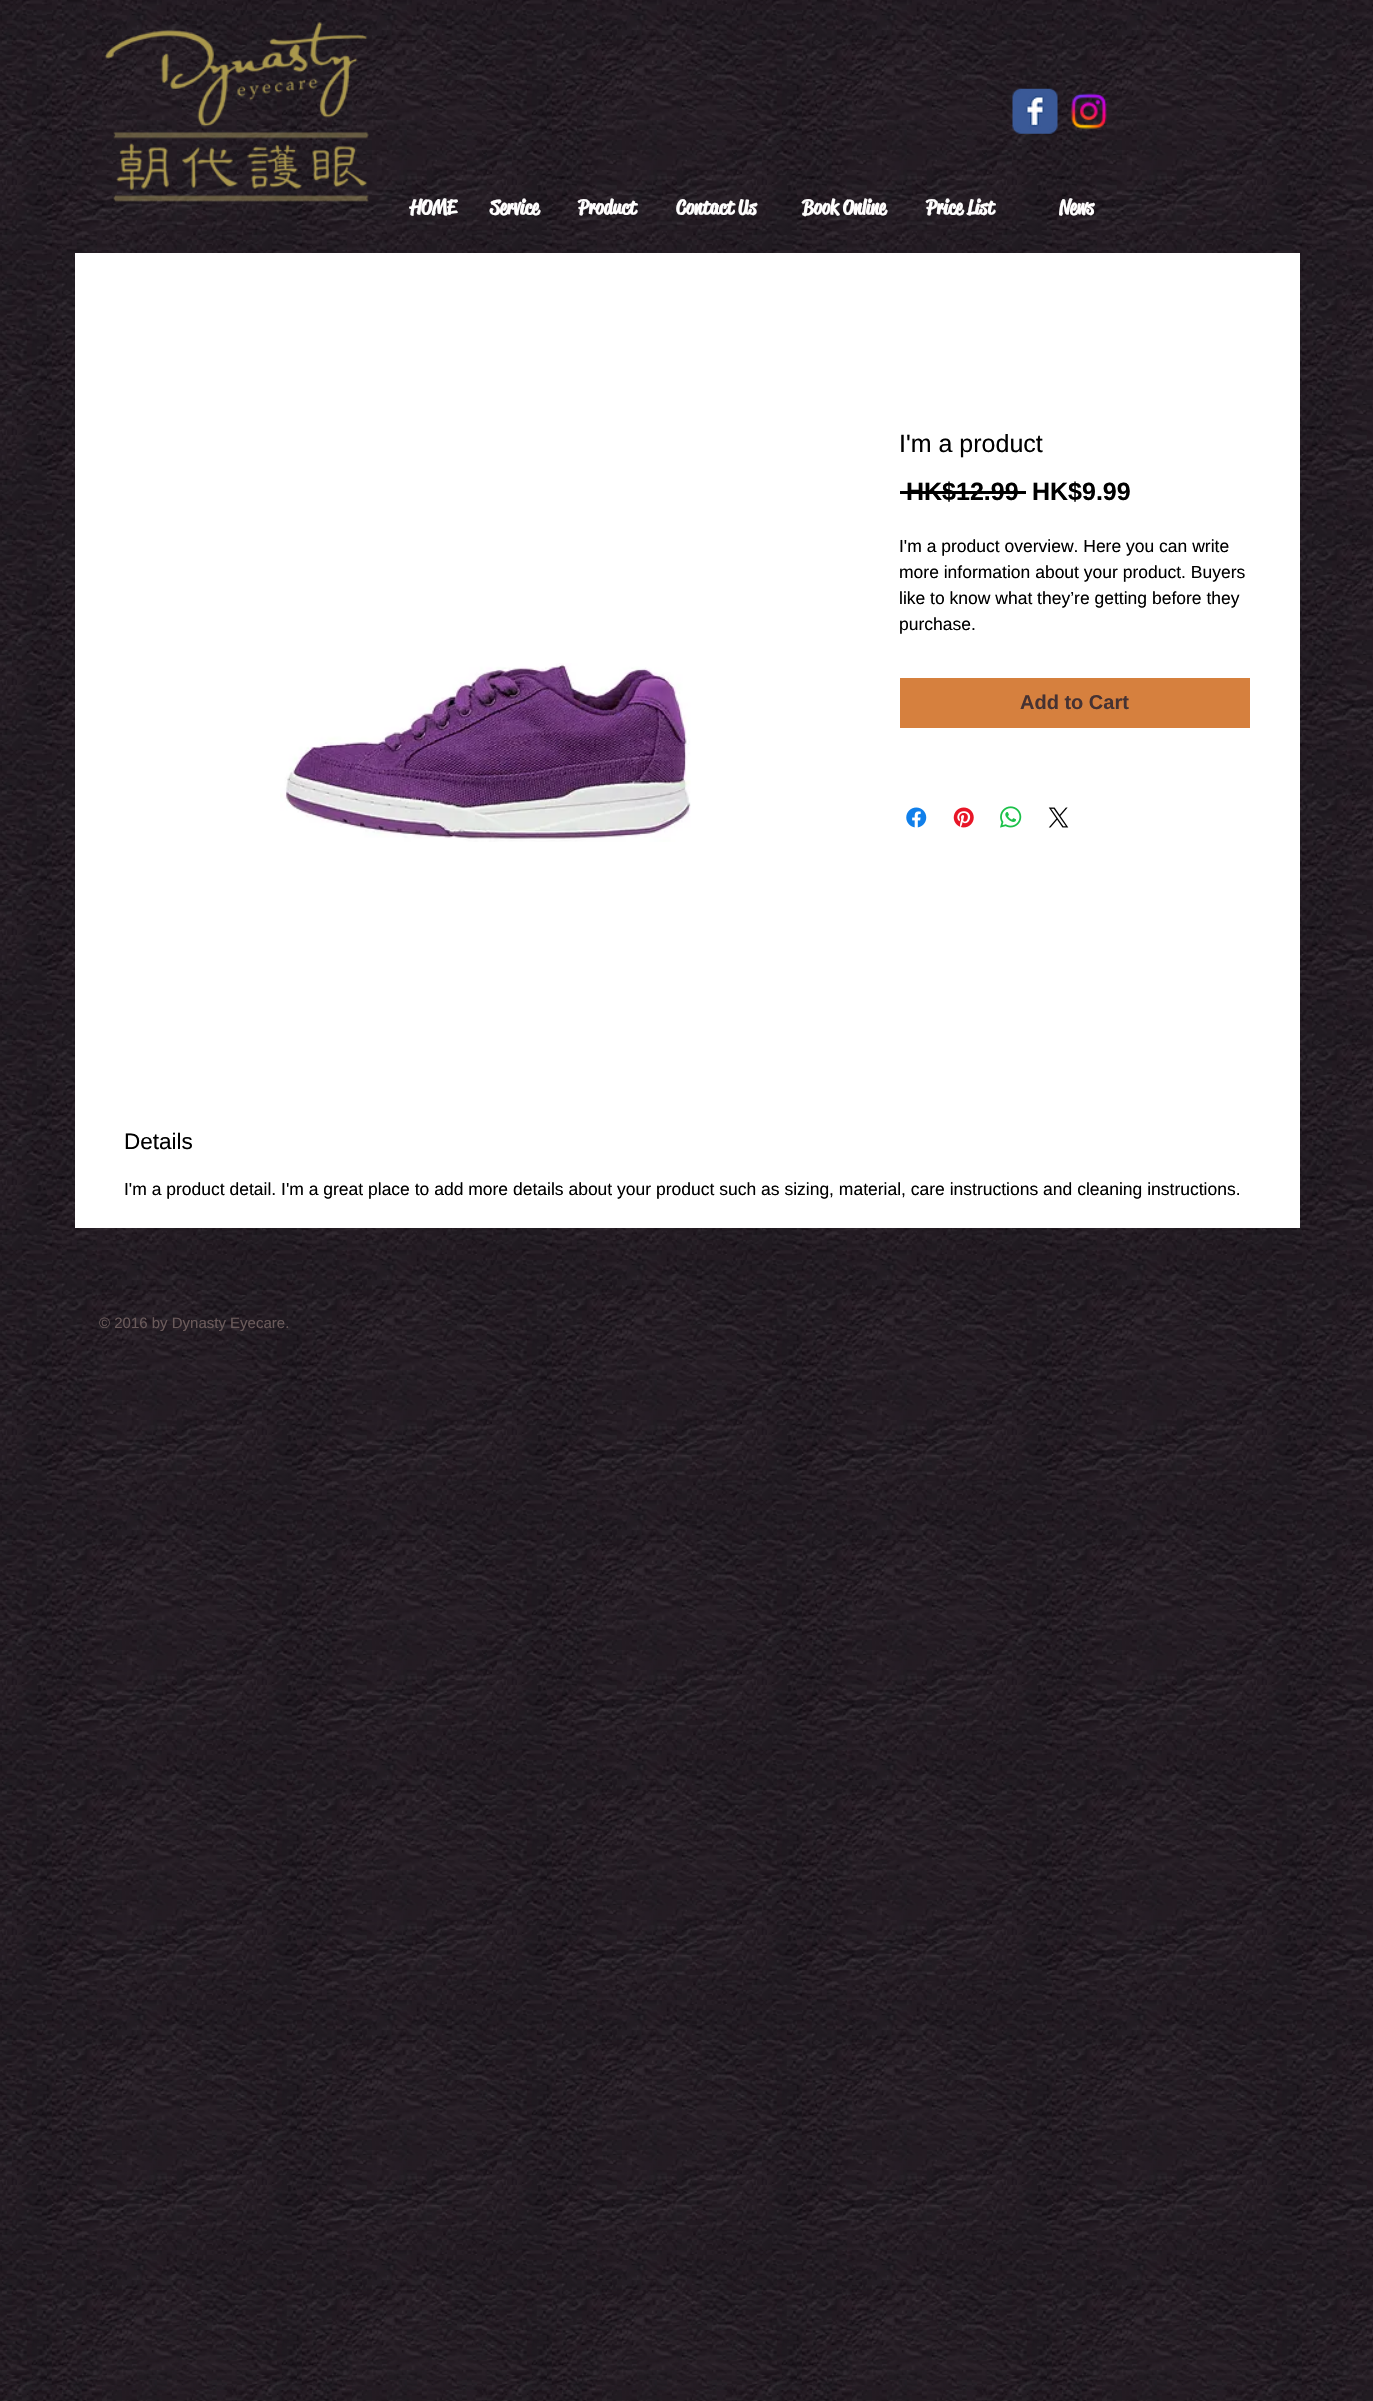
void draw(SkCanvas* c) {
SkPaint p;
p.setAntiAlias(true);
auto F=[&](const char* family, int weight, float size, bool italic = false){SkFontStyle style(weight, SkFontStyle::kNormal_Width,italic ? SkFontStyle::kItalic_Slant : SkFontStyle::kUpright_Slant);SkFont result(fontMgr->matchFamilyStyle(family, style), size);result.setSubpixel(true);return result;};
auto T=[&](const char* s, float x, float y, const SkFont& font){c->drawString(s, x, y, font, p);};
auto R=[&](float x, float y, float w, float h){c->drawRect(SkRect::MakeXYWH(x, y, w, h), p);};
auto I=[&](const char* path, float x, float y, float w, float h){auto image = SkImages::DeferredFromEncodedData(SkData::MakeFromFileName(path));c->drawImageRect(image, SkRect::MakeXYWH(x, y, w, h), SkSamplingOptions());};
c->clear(0xffffffff);
I("1.png",0,0,1373,2401);
I("2.png",105,22,264,180);
I("3.png",1012,88,46,46);
I("4.png",1071,93,36,36);
auto f1 = F("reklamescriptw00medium",700,20);
p.setColor(0xfffefdfd);
T("HOME",410,214,f1);
T("Service",490,214,f1);
T("Product",578,214,f1);
T("Contact Us",676,214,f1);
T("Book Online",802,214,f1);
T("Price List",926,214,f1);
T("News",1059,214,f1);
p.setColor(0xffffffff);
R(75,253,1225,975);
auto f2 = F("Liberation Sans",400,25);
p.setColor(0xff000000);
T("I'm a product",899,452,f2);
auto f3 = F("Liberation Sans",700,25);
T("HK$12.99",906,500,f3);
R(900,491,126,3);
T("HK$9.99",1032,500,f3);
auto f4 = F("Liberation Sans",400,17.5);
T("I'm a product overview. Here you can write",899,552,f4);
T("more information about your product. Buyers",899,578,f4);
T("like to know what they’re getting before they",899,604,f4);
T("purchase.",899,630,f4);
p.setColor(0xffd6803e);
R(900,678,350,50);
auto f5 = F("Liberation Sans",700,20);
p.setColor(0xff463232);
T("Add to Cart",1020,709,f5);
I("5.png",906,807,21,21);
I("6.png",953,807,21,21);
I("7.png",1000,806,22,22);
I("8.png",1048,807,21,21);
I("9.png",280,663,411,179);
auto f6 = F("Liberation Sans",400,22.5);
p.setColor(0xff000000);
T("Details",124,1149,f6);
T("I'm a product detail. I'm a great place to add more details about your product such as sizing, material, care instructions and cleaning instructions.",124,1195,f4);
auto f7 = F("Liberation Sans",400,15);
p.setColor(0xff6a5a5a);
T("© 2016 by Dynasty Eyecare.",99,1328,f7);
}
